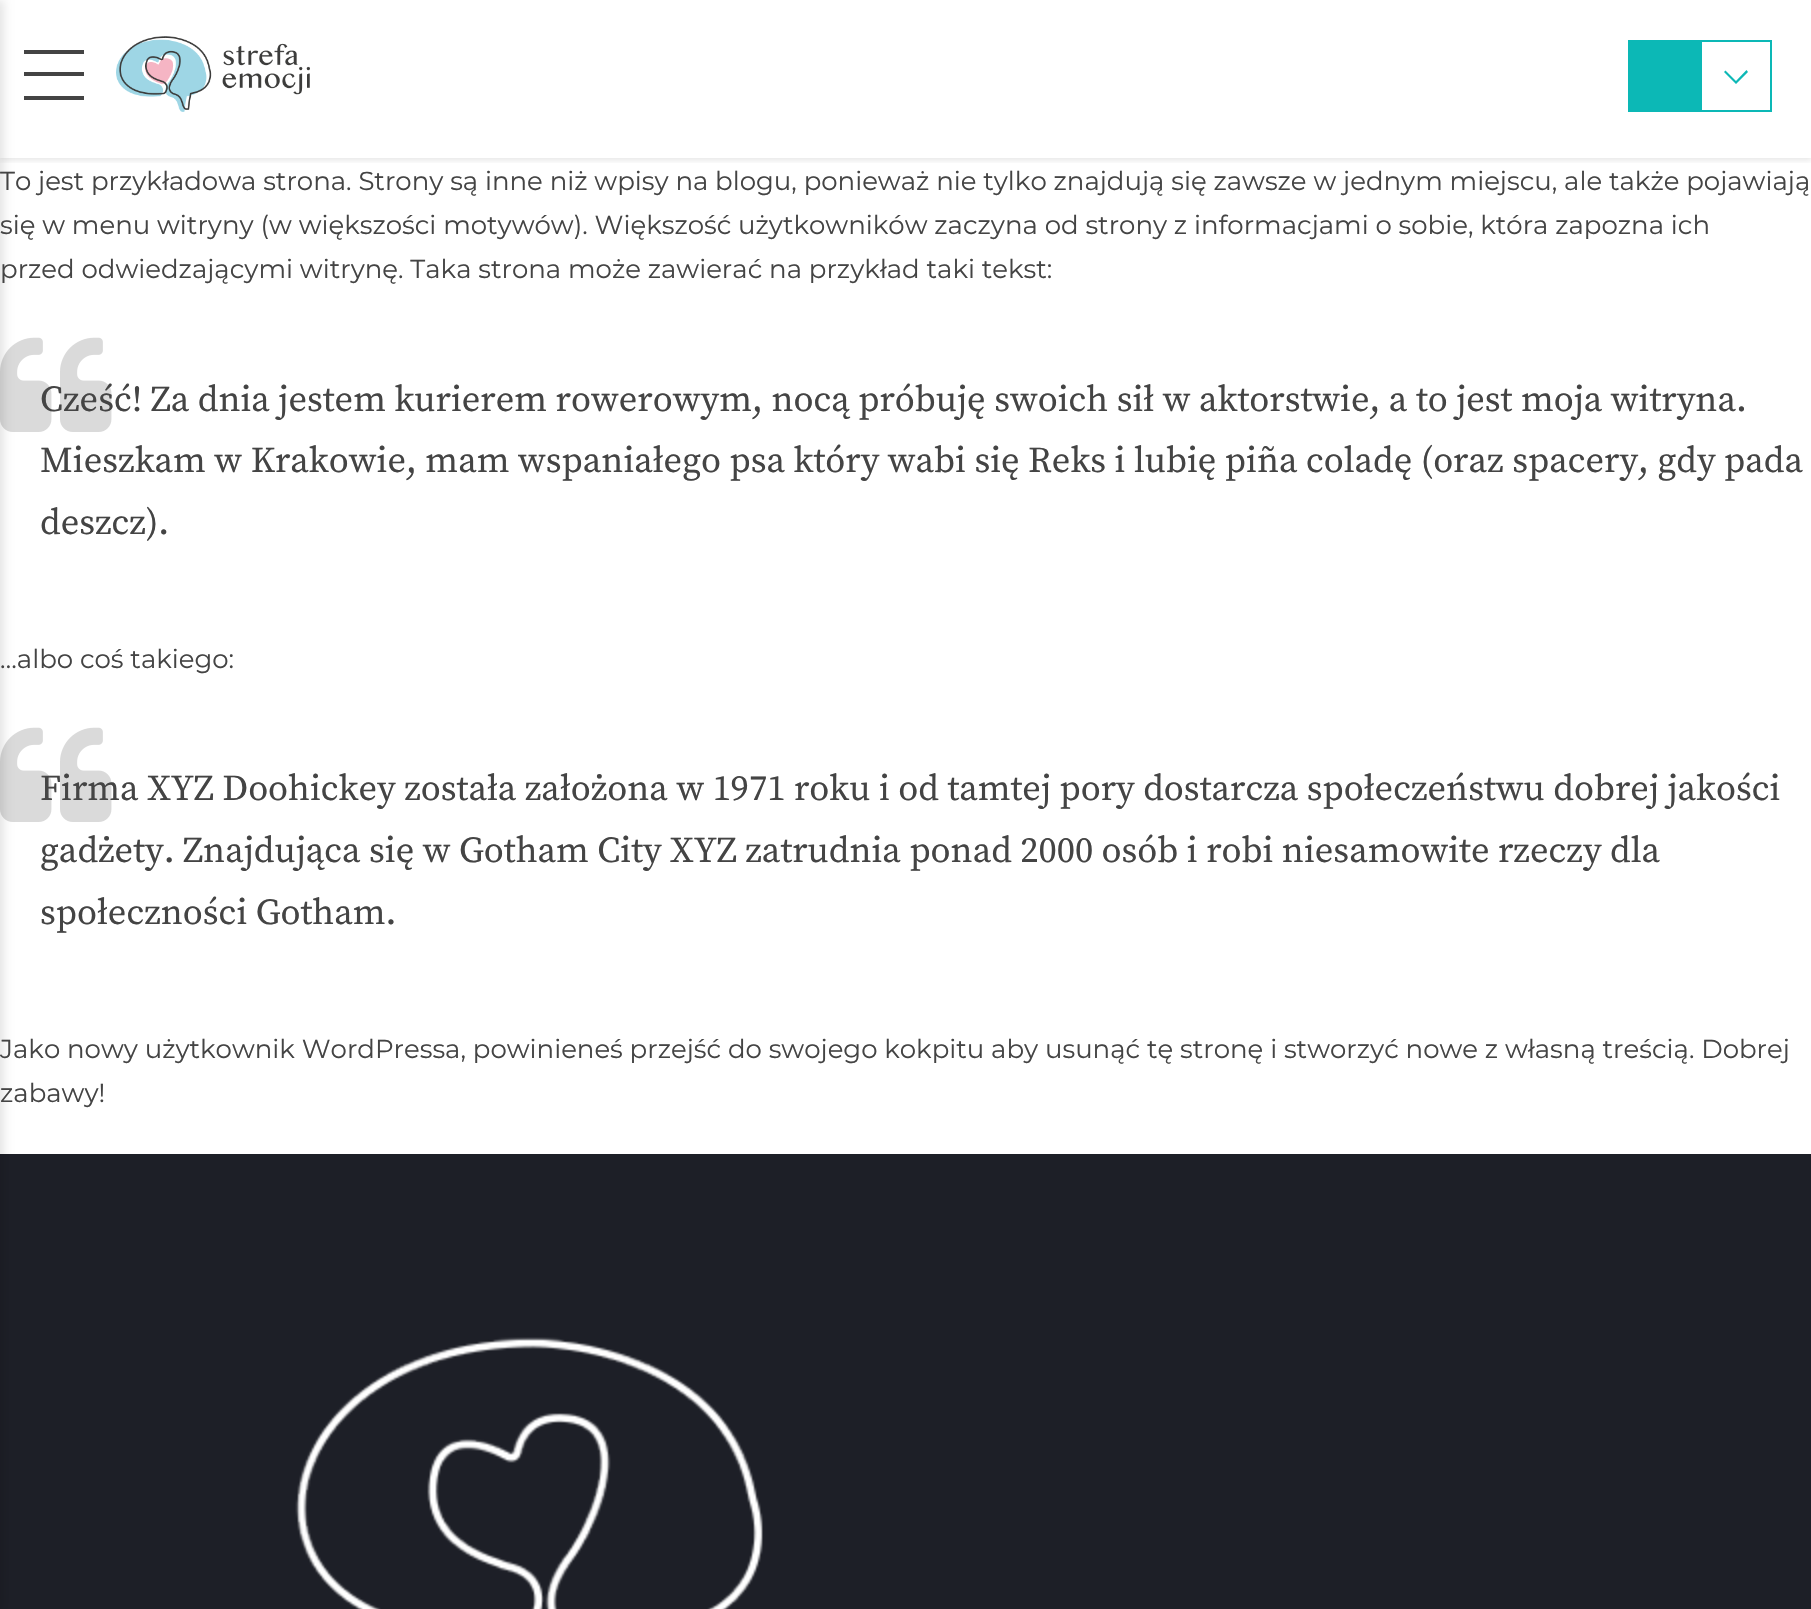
void draw(SkCanvas* c) {
SkPaint p;
p.setAntiAlias(true);
auto F=[&](const char* family, int weight, float size, bool italic = false){SkFontStyle style(weight, SkFontStyle::kNormal_Width,italic ? SkFontStyle::kItalic_Slant : SkFontStyle::kUpright_Slant);SkFont result(fontMgr->matchFamilyStyle(family, style), size);result.setSubpixel(true);return result;};
auto T=[&](const char* s, float x, float y, const SkFont& font){c->drawString(s, x, y, font, p);};
auto R=[&](float x, float y, float w, float h){c->drawRect(SkRect::MakeXYWH(x, y, w, h), p);};
auto I=[&](const char* path, float x, float y, float w, float h){auto image = SkImages::DeferredFromEncodedData(SkData::MakeFromFileName(path));c->drawImageRect(image, SkRect::MakeXYWH(x, y, w, h), SkSamplingOptions());};
auto P=[&](const char* data, bool evenOdd = false){SkPath result = *SkParsePath::FromSVGString(data);if (evenOdd) result.setFillType(SkPathFillType::kEvenOdd);return result;};
c->clear(0xffffffff);
auto f1 = F("Source Serif Pro",400,36.4);
p.setColor(0xff444444);
T("Cześć! Za dnia jestem kurierem rowerowym, nocą próbuję swoich sił w aktorstwie, a to jest moja witryna.",40,411,f1);
I("2.png",0,337,112,95);
T("Firma XYZ Doohickey została założona w 1971 roku i od tamtej pory dostarcza społeczeństwu dobrej jakości",40,800,f1);
I("3.png",0,727,112,95);
p.setColor(0xff1d1f27);
R(0,1154,1811,455);
p.setColor(0x1a000000);
p.setMaskFilter(SkMaskFilter::MakeBlur(kNormal_SkBlurStyle, 5));
c->drawRect(SkRect::MakeXYWH(-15,0,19,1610),p);
p.setMaskFilter(nullptr);
c->save();
c->clipRect(SkRect::MakeXYWH(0,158,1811,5));
p.setMaskFilter(SkMaskFilter::MakeBlur(kNormal_SkBlurStyle, 3));
c->drawRect(SkRect::MakeXYWH(0,2,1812,158),p);
p.setMaskFilter(nullptr);
c->restore();
p.setColor(0xff444444);
R(24,50,60,4);
R(24,72,60,4);
R(24,96,60,4);
I("1.png",116,36,194,76);
p.setColor(0xff0cb8b6);
R(1628,40,72,72);
p.setStroke(true);
p.setStrokeWidth(2);
c->drawRect(SkRect::MakeXYWH(1701,41,70,70),p);
p.setStroke(false);
c->drawPath(P("M1734.5 82.5l1.5 1.5l12-12l-1.5-2l-10.5 11l-10.5-10.5l-1.5 1.5z"),p);
auto f2 = F("Montserrat",400,26);
p.setColor(0xff444444);
T("To jest przykładowa strona. Strony są inne niż wpisy na blogu, ponieważ nie tylko znajdują się zawsze w jednym miejscu, ale także pojawiają",0,190,f2);
T("się w menu witryny (w większości motywów). Większość użytkowników zaczyna od strony z informacjami o sobie, która zapozna ich",0,234,f2);
T("przed odwiedzającymi witrynę. Taka strona może zawierać na przykład taki tekst:",0,278,f2);
T("Mieszkam w Krakowie, mam wspaniałego psa który wabi się Reks i lubię piña coladę (oraz spacery, gdy pada",40,472,f1);
T("deszcz).",40,534,f1);
T("…albo coś takiego:",0,668,f2);
T("gadżety. Znajdująca się w Gotham City XYZ zatrudnia ponad 2000 osób i robi niesamowite rzeczy dla",40,862,f1);
T("społeczności Gotham.",40,924,f1);
T("Jako nowy użytkownik WordPressa, powinieneś przejść do swojego kokpitu aby usunąć tę stronę i stworzyć nowe z własną treścią. Dobrej",0,1058,f2);
T("zabawy!",0,1102,f2);
I("4.png",295,1337,468,272);
}
